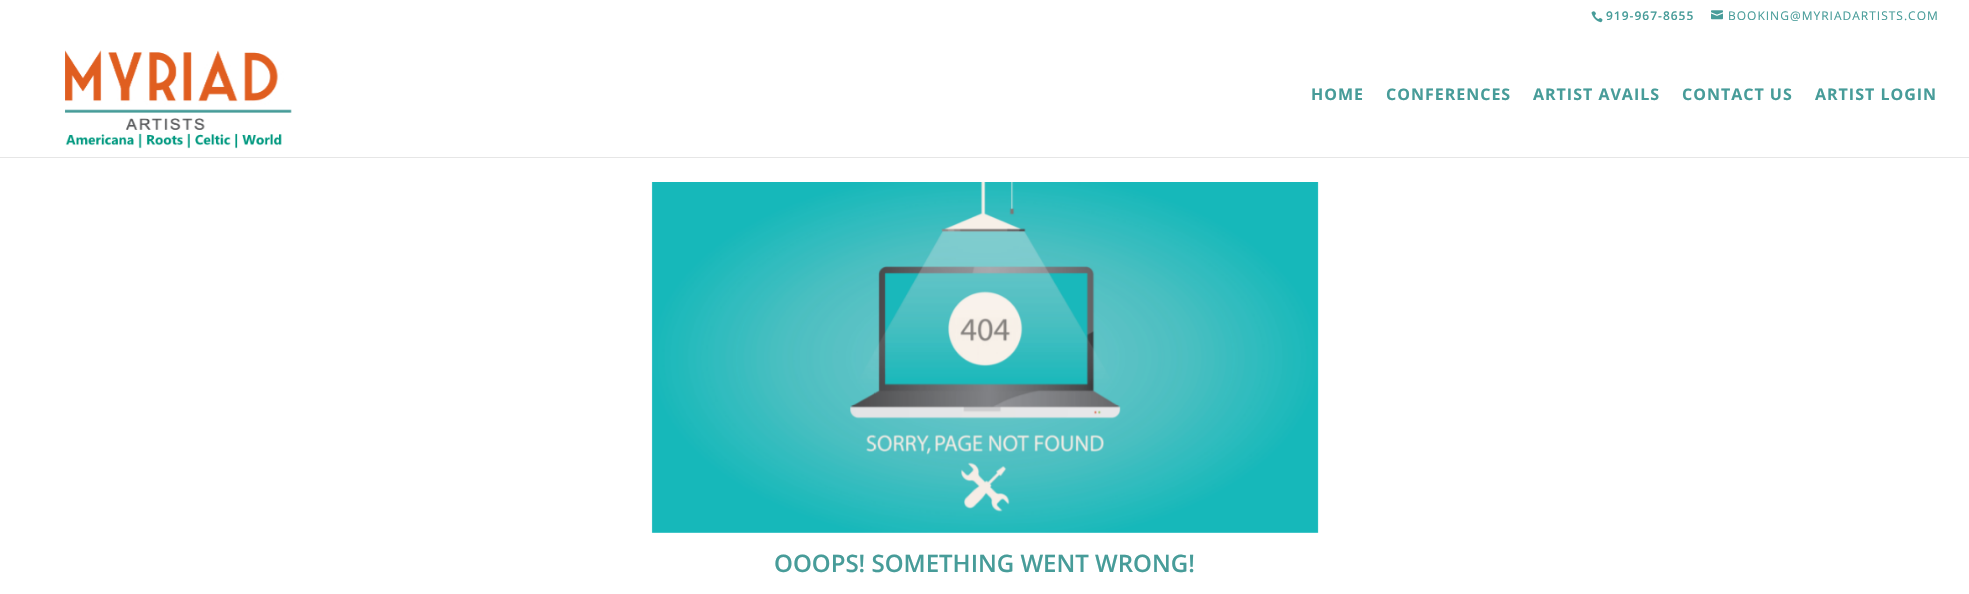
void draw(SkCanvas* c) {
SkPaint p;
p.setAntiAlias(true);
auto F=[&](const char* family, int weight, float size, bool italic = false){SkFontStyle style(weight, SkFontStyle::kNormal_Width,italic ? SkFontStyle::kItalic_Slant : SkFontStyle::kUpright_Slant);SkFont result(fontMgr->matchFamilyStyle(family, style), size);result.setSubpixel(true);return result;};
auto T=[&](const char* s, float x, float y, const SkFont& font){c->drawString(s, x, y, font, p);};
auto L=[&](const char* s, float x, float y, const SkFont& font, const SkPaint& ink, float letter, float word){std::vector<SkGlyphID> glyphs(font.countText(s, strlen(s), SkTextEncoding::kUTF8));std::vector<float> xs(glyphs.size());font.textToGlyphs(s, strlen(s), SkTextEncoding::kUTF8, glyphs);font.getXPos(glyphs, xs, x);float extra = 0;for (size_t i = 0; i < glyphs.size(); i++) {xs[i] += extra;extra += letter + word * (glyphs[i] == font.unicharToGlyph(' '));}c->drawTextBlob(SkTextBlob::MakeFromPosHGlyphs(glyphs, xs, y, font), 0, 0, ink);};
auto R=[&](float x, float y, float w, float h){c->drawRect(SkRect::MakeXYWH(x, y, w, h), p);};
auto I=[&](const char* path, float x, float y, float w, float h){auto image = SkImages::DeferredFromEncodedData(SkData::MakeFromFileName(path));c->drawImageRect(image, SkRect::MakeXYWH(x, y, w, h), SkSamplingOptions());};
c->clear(0xffffffff);
I("1.png",1591,11,12,12);
auto f1 = F("Open Sans",600,12);
p.setColor(0xff479c99);
L("919-967-8655",1606,20,f1,p,1,0);
I("2.png",1711,10,12,10);
auto f2 = F("Open Sans",400,12);
L("BOOKING@MYRIADARTISTS.COM",1728,20,f2,p,1,0);
p.setColor(0xffe6e6e6);
R(0,157,1969,1);
I("3.png",65,50,227,99);
auto f3 = F("Open Sans",700,16);
p.setColor(0xff479c99);
L("HOME",1311,100,f3,p,1,0);
L("CONFERENCES",1386,100,f3,p,1,0);
L("ARTIST AVAILS",1533,100,f3,p,1,0);
L("CONTACT US",1682,100,f3,p,1,0);
L("ARTIST LOGIN",1815,100,f3,p,1,0);
I("4.png",651,182,668,351);
auto f4 = F("Open Sans",600,24);
T("OOOPS! SOMETHING WENT WRONG!",774,572,f4);
}
